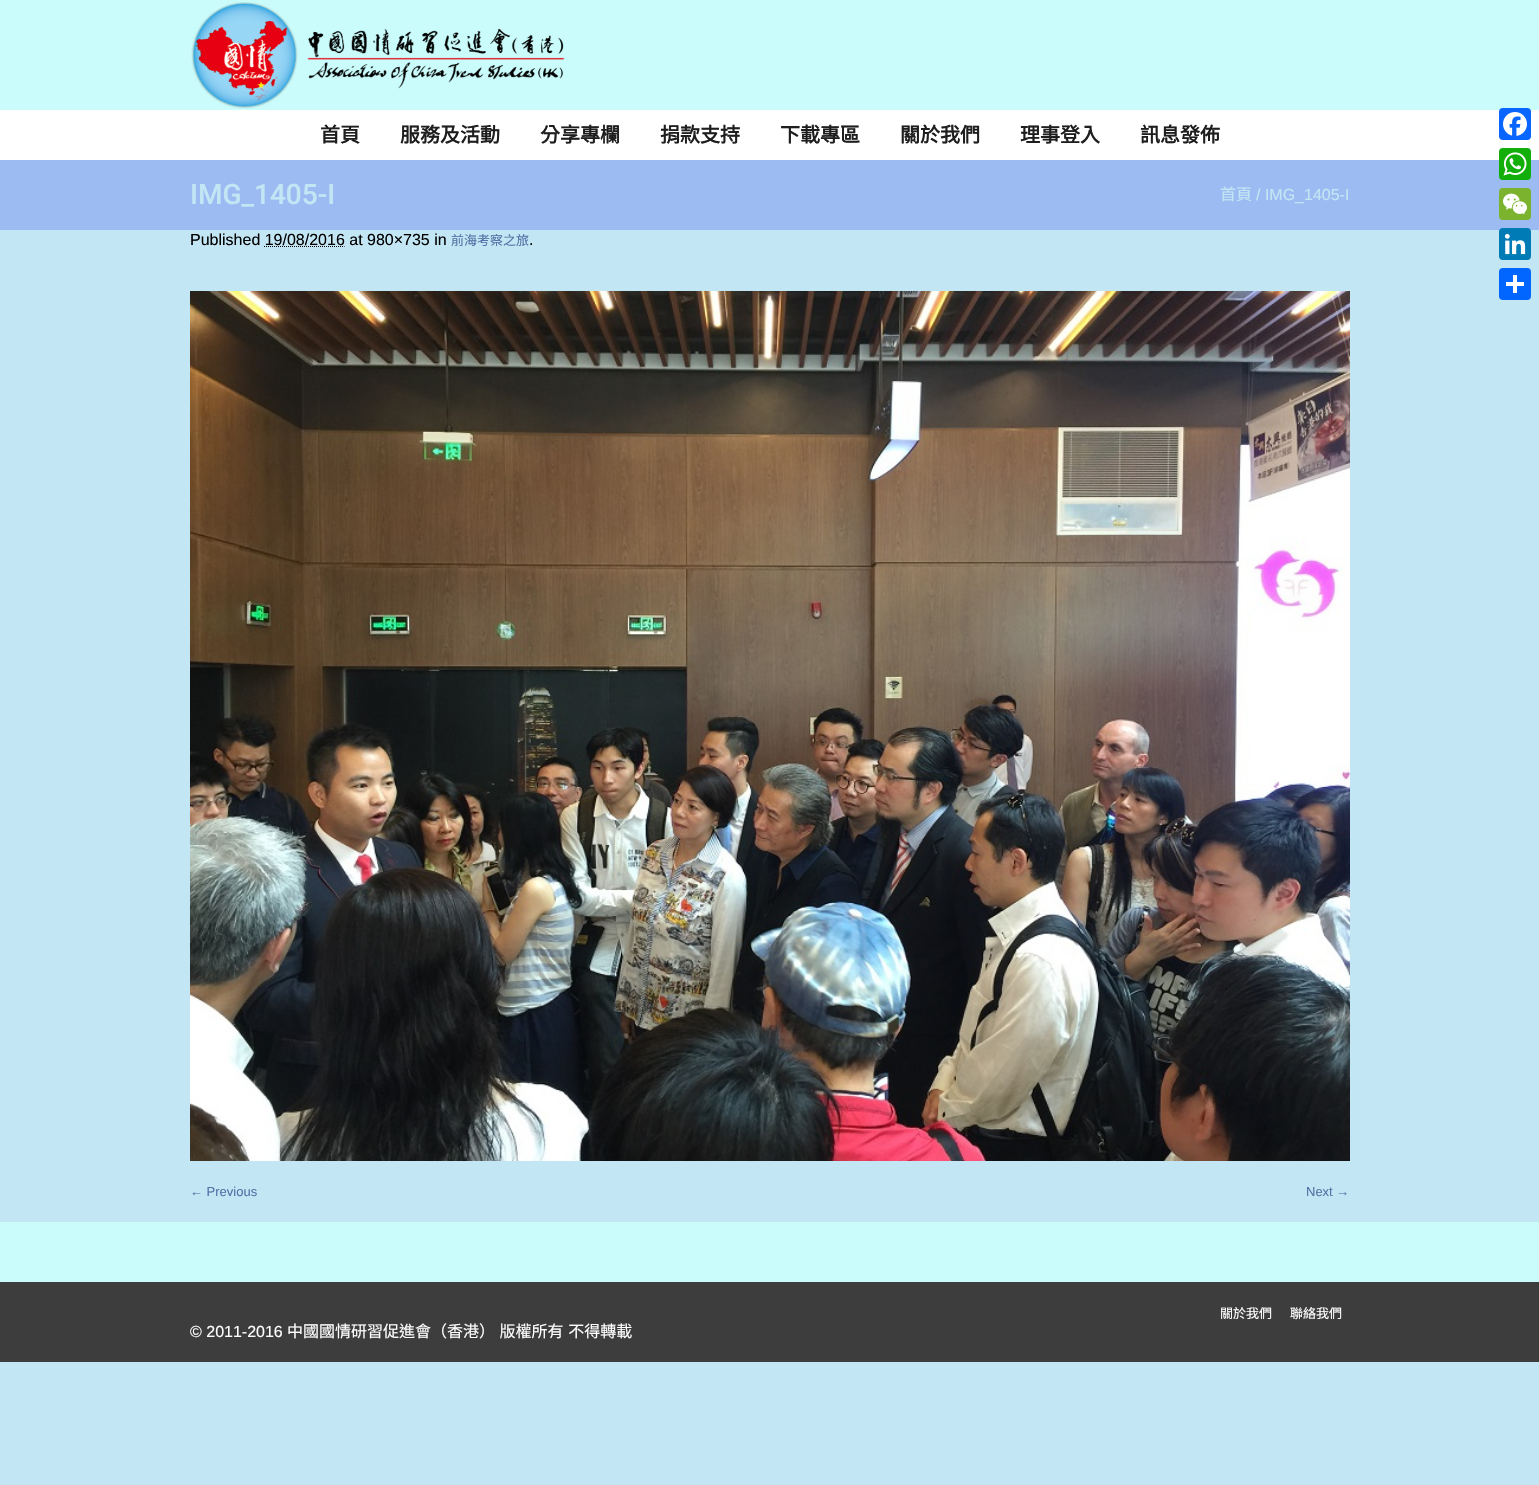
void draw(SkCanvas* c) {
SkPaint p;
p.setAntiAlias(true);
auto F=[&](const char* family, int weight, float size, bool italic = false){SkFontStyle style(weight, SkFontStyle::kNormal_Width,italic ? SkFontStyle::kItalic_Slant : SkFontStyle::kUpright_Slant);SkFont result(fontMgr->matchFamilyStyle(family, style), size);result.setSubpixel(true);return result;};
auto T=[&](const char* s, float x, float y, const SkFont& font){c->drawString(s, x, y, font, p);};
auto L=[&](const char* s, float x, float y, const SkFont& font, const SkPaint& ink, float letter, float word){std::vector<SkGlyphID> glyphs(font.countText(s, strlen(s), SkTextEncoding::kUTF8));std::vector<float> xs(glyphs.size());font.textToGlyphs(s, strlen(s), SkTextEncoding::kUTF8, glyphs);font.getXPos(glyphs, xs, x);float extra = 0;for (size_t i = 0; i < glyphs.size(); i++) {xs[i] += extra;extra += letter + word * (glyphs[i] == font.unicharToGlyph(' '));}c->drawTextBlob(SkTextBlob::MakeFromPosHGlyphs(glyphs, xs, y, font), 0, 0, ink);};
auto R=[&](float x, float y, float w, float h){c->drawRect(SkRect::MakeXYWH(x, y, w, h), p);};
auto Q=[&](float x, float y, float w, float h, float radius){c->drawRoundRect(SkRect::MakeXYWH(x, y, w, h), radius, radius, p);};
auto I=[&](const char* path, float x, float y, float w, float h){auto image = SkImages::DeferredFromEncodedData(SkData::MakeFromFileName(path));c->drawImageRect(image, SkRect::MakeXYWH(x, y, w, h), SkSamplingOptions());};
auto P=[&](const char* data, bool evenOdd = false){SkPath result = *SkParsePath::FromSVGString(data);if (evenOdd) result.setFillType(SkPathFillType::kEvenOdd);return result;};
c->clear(0xffc3e6f4);
p.setColor(0xffcafcfb);
R(0,0,1539,110);
I("1.png",191,2,374,107);
p.setColor(0xffffffff);
R(0,110,1539,50);
auto f1 = F("Noto Sans CJK TC",700,20);
p.setColor(0xff1e1e1e);
T("首頁",320,142,f1);
T("服務及活動",400,142,f1);
T("分享專欄",540,142,f1);
T("捐款支持",660,142,f1);
T("下載專區",780,142,f1);
T("關於我們",900,142,f1);
T("理事登入",1020,142,f1);
T("訊息發佈",1140,142,f1);
p.setColor(0xff9bbbf2);
R(0,160,1539,70);
auto f2 = F("Roboto",500,28);
p.setColor(0xffc3e6f4);
T("IMG_1405-I",190,204,f2);
auto f3 = F("Noto Sans CJK TC",400,16);
T("首頁",1220,200,f3);
auto f4 = F("Liberation Sans",400,16);
T("/ IMG_1405-I",1256,200,f4);
p.setColor(0xff000000);
T("Published 19/08/2016 at 980×735 in",190,245,f4);
auto f5 = F("Noto Sans CJK TC",400,13);
p.setColor(0xff5173a6);
T("前海考察之旅",451,245,f5);
p.setColor(0xff000000);
T(".",529,245,f4);
p.setStroke(true);
p.setStrokeWidth(1);
p.setPathEffect(SkDashPathEffect::Make({{1,1}}, 0));
c->drawPath(P("M264 246.5h80.5"),p);
p.setPathEffect(nullptr);
I("2.png",190,291,1160,870);
auto f6 = F("Liberation Sans",400,13);
p.setStroke(false);
p.setColor(0xff5173a6);
T("← Previous",190,1196,f6);
T("Next →",1306,1196,f6);
p.setColor(0xffcafcfb);
R(0,1222,1539,60);
p.setColor(0xff3d3d3d);
R(0,1282,1539,80);
p.setColor(0xffffffff);
T("關於我們",1220,1318,f5);
T("聯絡我們",1290,1318,f5);
T("© 2011-2016",190,1337,f4);
L("中國國情研習促進會（香港） 版權所有 不得轉載",287,1337,f3,p,0,1);
p.setColor(0xff0866ff);
Q(1499,108,32,32,4);
I("3.png",1503,112,24,24);
p.setColor(0xff12af0a);
Q(1499,148,32,32,4);
I("4.png",1503,152,24,24);
p.setColor(0xff7bb32e);
Q(1499,188,32,32,4);
I("5.png",1503,193,24,22);
p.setColor(0xff007bb5);
Q(1499,228,32,32,4);
I("6.png",1504,233,22,22);
p.setColor(0xff0166ff);
Q(1499,268,32,32,4);
p.setColor(0xffffffff);
R(1513,275,4,18);
R(1506,282,18,4);
}
